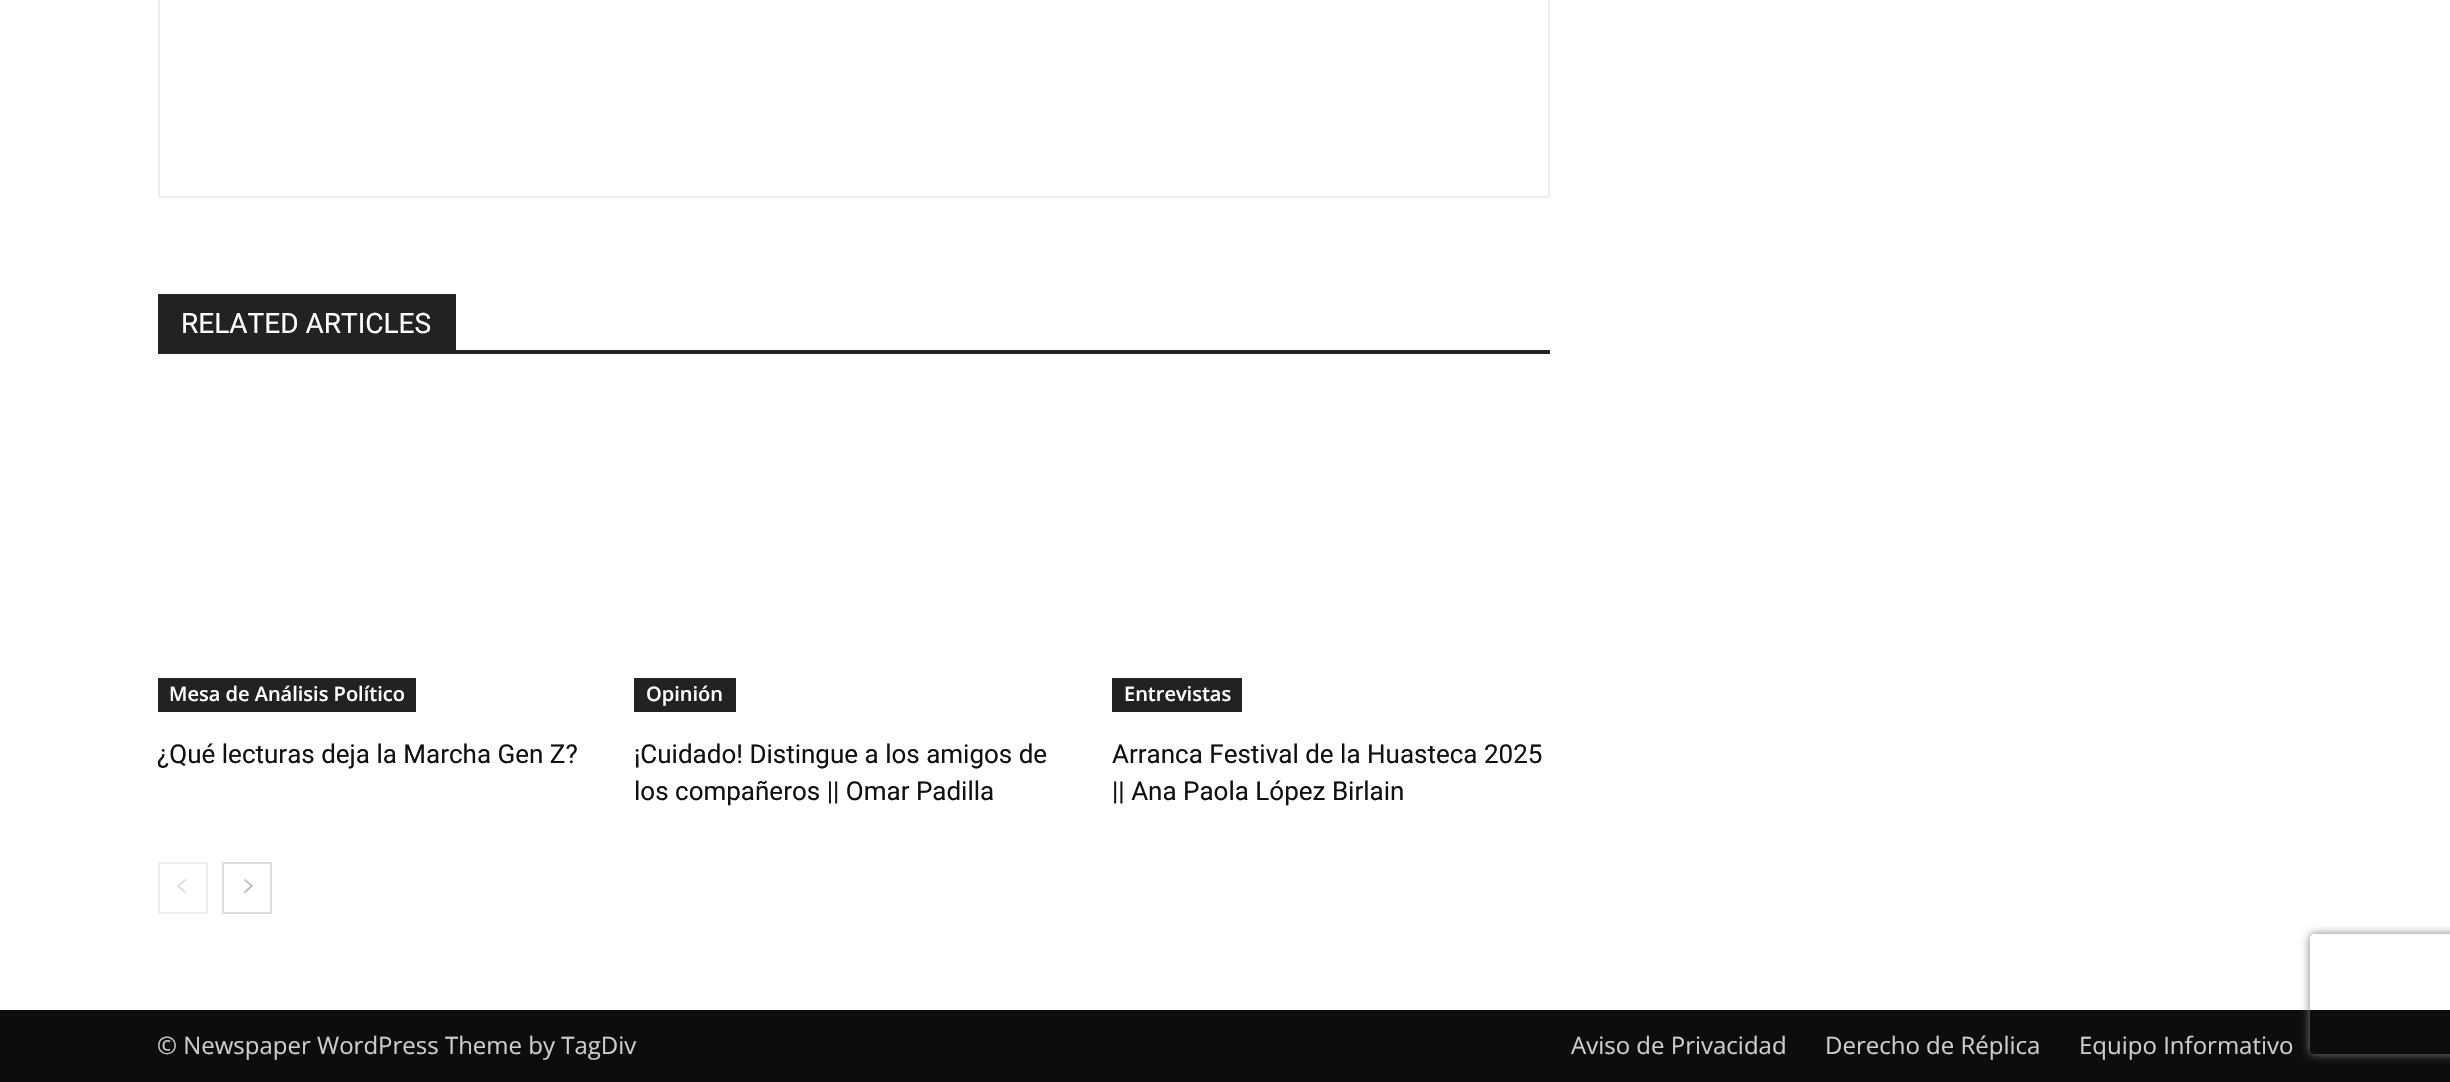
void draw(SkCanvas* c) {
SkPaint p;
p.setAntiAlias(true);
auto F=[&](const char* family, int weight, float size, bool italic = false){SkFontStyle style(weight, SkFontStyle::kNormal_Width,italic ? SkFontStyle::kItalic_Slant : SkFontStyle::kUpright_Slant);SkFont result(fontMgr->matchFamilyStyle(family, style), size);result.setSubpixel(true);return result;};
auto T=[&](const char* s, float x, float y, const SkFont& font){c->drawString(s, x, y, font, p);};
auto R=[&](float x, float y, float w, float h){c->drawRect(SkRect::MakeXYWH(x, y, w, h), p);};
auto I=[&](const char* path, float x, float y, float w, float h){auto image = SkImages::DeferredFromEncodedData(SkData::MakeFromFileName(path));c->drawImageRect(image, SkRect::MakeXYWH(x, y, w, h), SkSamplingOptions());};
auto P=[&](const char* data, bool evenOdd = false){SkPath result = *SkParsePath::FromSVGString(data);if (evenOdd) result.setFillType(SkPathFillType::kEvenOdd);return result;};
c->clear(0xffffffff);
p.setStroke(true);
p.setStrokeWidth(2);
p.setColor(0xffededed);
c->drawRect(SkRect::MakeXYWH(159,-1,1390,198),p);
p.setStroke(false);
p.setColor(0xff222222);
R(158,350,1392,4);
R(158,294,298,56);
auto f1 = F("Roboto",400,28);
p.setColor(0xffffffff);
T("RELATED ARTICLES",181,333,f1);
p.setColor(0xff222222);
R(158,678,258,34);
auto f2 = F("Open Sans",600,20);
p.setColor(0xffffffff);
T("Mesa de Análisis Político",169,701,f2);
auto f3 = F("Roboto",400,26);
p.setColor(0xff111111);
T("¿Qué lecturas deja la Marcha Gen Z?",157,763,f3);
p.setColor(0xff222222);
R(634,678,102,34);
p.setColor(0xffffffff);
T("Opinión",646,701,f2);
p.setColor(0xff111111);
T("¡Cuidado! Distingue a los amigos de",634,763,f3);
T("los compañeros || Omar Padilla",634,800,f3);
p.setColor(0xff222222);
R(1112,678,130,34);
p.setColor(0xffffffff);
T("Entrevistas",1124,701,f2);
p.setColor(0xff111111);
T("Arranca Festival de la Huasteca 2025",1112,763,f3);
T("|| Ana Paola López Birlain",1112,800,f3);
p.setStroke(true);
p.setColor(0xffeeeeee);
c->drawRect(SkRect::MakeXYWH(159,863,48,50),p);
I("1.png",177,879,9,14);
p.setColor(0xffdcdcdc);
c->drawRect(SkRect::MakeXYWH(223,863,48,50),p);
I("2.png",244,879,9,14);
p.setStroke(false);
p.setColor(0xff0d0d0d);
R(0,1010,2450,72);
auto f4 = F("Open Sans",400,24);
p.setColor(0xffcccccc);
T("© Newspaper WordPress Theme by TagDiv",157,1054,f4);
T("Aviso de Privacidad",1571,1054,f4);
T("Derecho de Réplica",1825,1054,f4);
T("Equipo Informativo",2079,1054,f4);
c->save();
c->clipPath(P("M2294 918h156v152h-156zm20 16h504c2 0 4 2 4 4v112c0 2-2 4-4 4h-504c-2 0-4-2-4-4v-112c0-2 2-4 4-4z",true),true);
p.setColor(0xff808080);
p.setMaskFilter(SkMaskFilter::MakeBlur(kNormal_SkBlurStyle, 5));
c->drawRoundRect(SkRect::MakeXYWH(2310,934,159,120),4,4,p);
p.setMaskFilter(nullptr);
c->restore();
}
